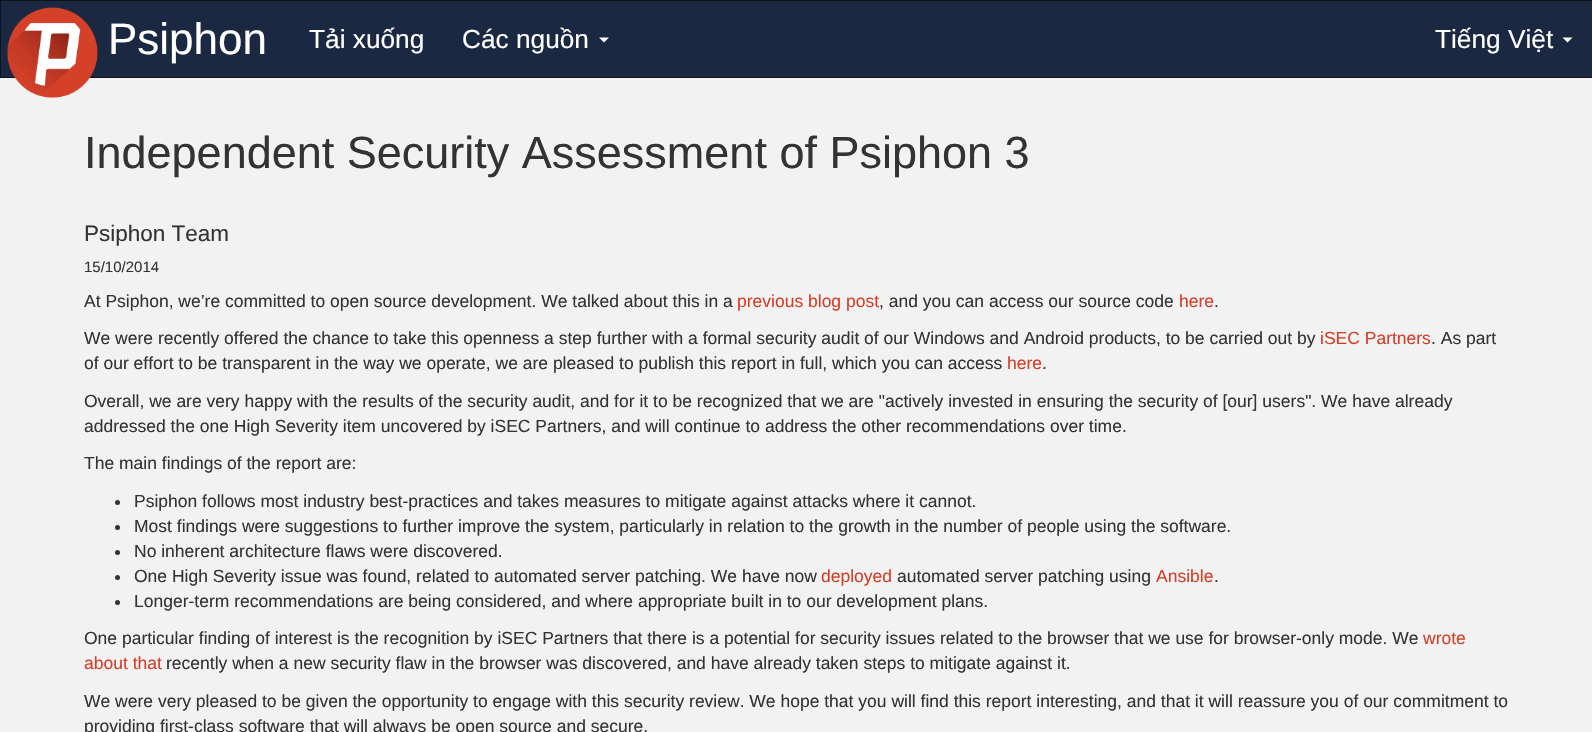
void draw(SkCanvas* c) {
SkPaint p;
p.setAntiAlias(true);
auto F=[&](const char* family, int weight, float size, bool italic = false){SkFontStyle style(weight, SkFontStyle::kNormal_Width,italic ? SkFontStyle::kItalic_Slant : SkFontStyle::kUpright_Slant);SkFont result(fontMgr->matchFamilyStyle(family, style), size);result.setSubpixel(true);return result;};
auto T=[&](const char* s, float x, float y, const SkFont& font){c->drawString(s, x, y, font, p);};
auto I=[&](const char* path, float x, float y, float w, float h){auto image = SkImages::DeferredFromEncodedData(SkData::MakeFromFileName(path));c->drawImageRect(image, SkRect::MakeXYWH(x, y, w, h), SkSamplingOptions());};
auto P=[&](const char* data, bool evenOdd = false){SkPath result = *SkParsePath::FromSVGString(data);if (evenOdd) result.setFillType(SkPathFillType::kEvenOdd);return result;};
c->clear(0xfff3f2f2);
p.setColor(0xff1b2841);
c->drawRect(SkRect::MakeXYWH(.5,.5,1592,77),p);
p.setStroke(true);
p.setStrokeWidth(1);
p.setColor(0xff0c121d);
c->drawRect(SkRect::MakeXYWH(.5,.5,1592,77),p);
I("1.png",7,7,91,91);
auto f1 = F("Liberation Sans",400,44);
p.setStroke(false);
p.setColor(0xffffffff);
T("Psiphon",108,54,f1);
auto f2 = F("Liberation Sans",400,26.25);
T("Tải xuống",309,48,f2);
T("Các nguồn",462,48,f2);
c->drawPath(P("M599 37.5h10l-5 5z"),p);
T("Tiếng Việt",1435,48,f2);
c->drawPath(P("M1562.5 37.5h10l-5 5z"),p);
auto f3 = F("Liberation Sans",400,45);
p.setColor(0xff333333);
T("Independent Security Assessment of Psiphon 3",84,168,f3);
auto f4 = F("Liberation Sans",400,22.5);
T("Psiphon Team",84,241,f4);
auto f5 = F("Liberation Sans",400,15);
T("15/10/2014",84,272,f5);
auto f6 = F("Liberation Sans",400,17.5);
T("At Psiphon, we’re committed to open source development. We talked about this in a",84,307,f6);
p.setColor(0xffd23f28);
T("previous blog post",737,307,f6);
p.setColor(0xff333333);
T(", and you can access our source code",879,307,f6);
p.setColor(0xffd23f28);
T("here",1179,307,f6);
p.setColor(0xff333333);
T(".",1214,307,f6);
T("We were recently offered the chance to take this openness a step further with a formal security audit of our Windows and Android products, to be carried out by",84,344,f6);
p.setColor(0xffd23f28);
T("iSEC Partners",1320,344,f6);
p.setColor(0xff333333);
T(". As part",1431,344,f6);
T("of our effort to be transparent in the way we operate, we are pleased to publish this report in full, which you can access",84,369,f6);
p.setColor(0xffd23f28);
T("here",1007,369,f6);
p.setColor(0xff333333);
T(".",1042,369,f6);
T("Overall, we are very happy with the results of the security audit, and for it to be recognized that we are \"actively invested in ensuring the security of [our] users\". We have already",84,407,f6);
T("addressed the one High Severity item uncovered by iSEC Partners, and will continue to address the other recommendations over time.",84,432,f6);
T("The main findings of the report are:",84,469,f6);
c->drawCircle(117.5,502.5,2.5,p);
T("Psiphon follows most industry best-practices and takes measures to mitigate against attacks where it cannot.",134,507,f6);
c->drawCircle(117.5,527.5,2.5,p);
T("Most findings were suggestions to further improve the system, particularly in relation to the growth in the number of people using the software.",134,532,f6);
c->drawCircle(117.5,552.5,2.5,p);
T("No inherent architecture flaws were discovered.",134,557,f6);
c->drawCircle(117.5,577.5,2.5,p);
T("One High Severity issue was found, related to automated server patching. We have now",134,582,f6);
p.setColor(0xffd23f28);
T("deployed",821,582,f6);
p.setColor(0xff333333);
T("automated server patching using",897,582,f6);
p.setColor(0xffd23f28);
T("Ansible",1156,582,f6);
p.setColor(0xff333333);
T(".",1214,582,f6);
c->drawCircle(117.5,602.5,2.5,p);
T("Longer-term recommendations are being considered, and where appropriate built in to our development plans.",134,607,f6);
T("One particular finding of interest is the recognition by iSEC Partners that there is a potential for security issues related to the browser that we use for browser-only mode. We",84,644,f6);
p.setColor(0xffd23f28);
T("wrote",1423,644,f6);
T("about that",84,669,f6);
p.setColor(0xff333333);
T("recently when a new security flaw in the browser was discovered, and have already taken steps to mitigate against it.",166,669,f6);
T("We were very pleased to be given the opportunity to engage with this security review. We hope that you will find this report interesting, and that it will reassure you of our commitment to",84,707,f6);
T("providing first-class software that will always be open source and secure.",84,732,f6);
}
